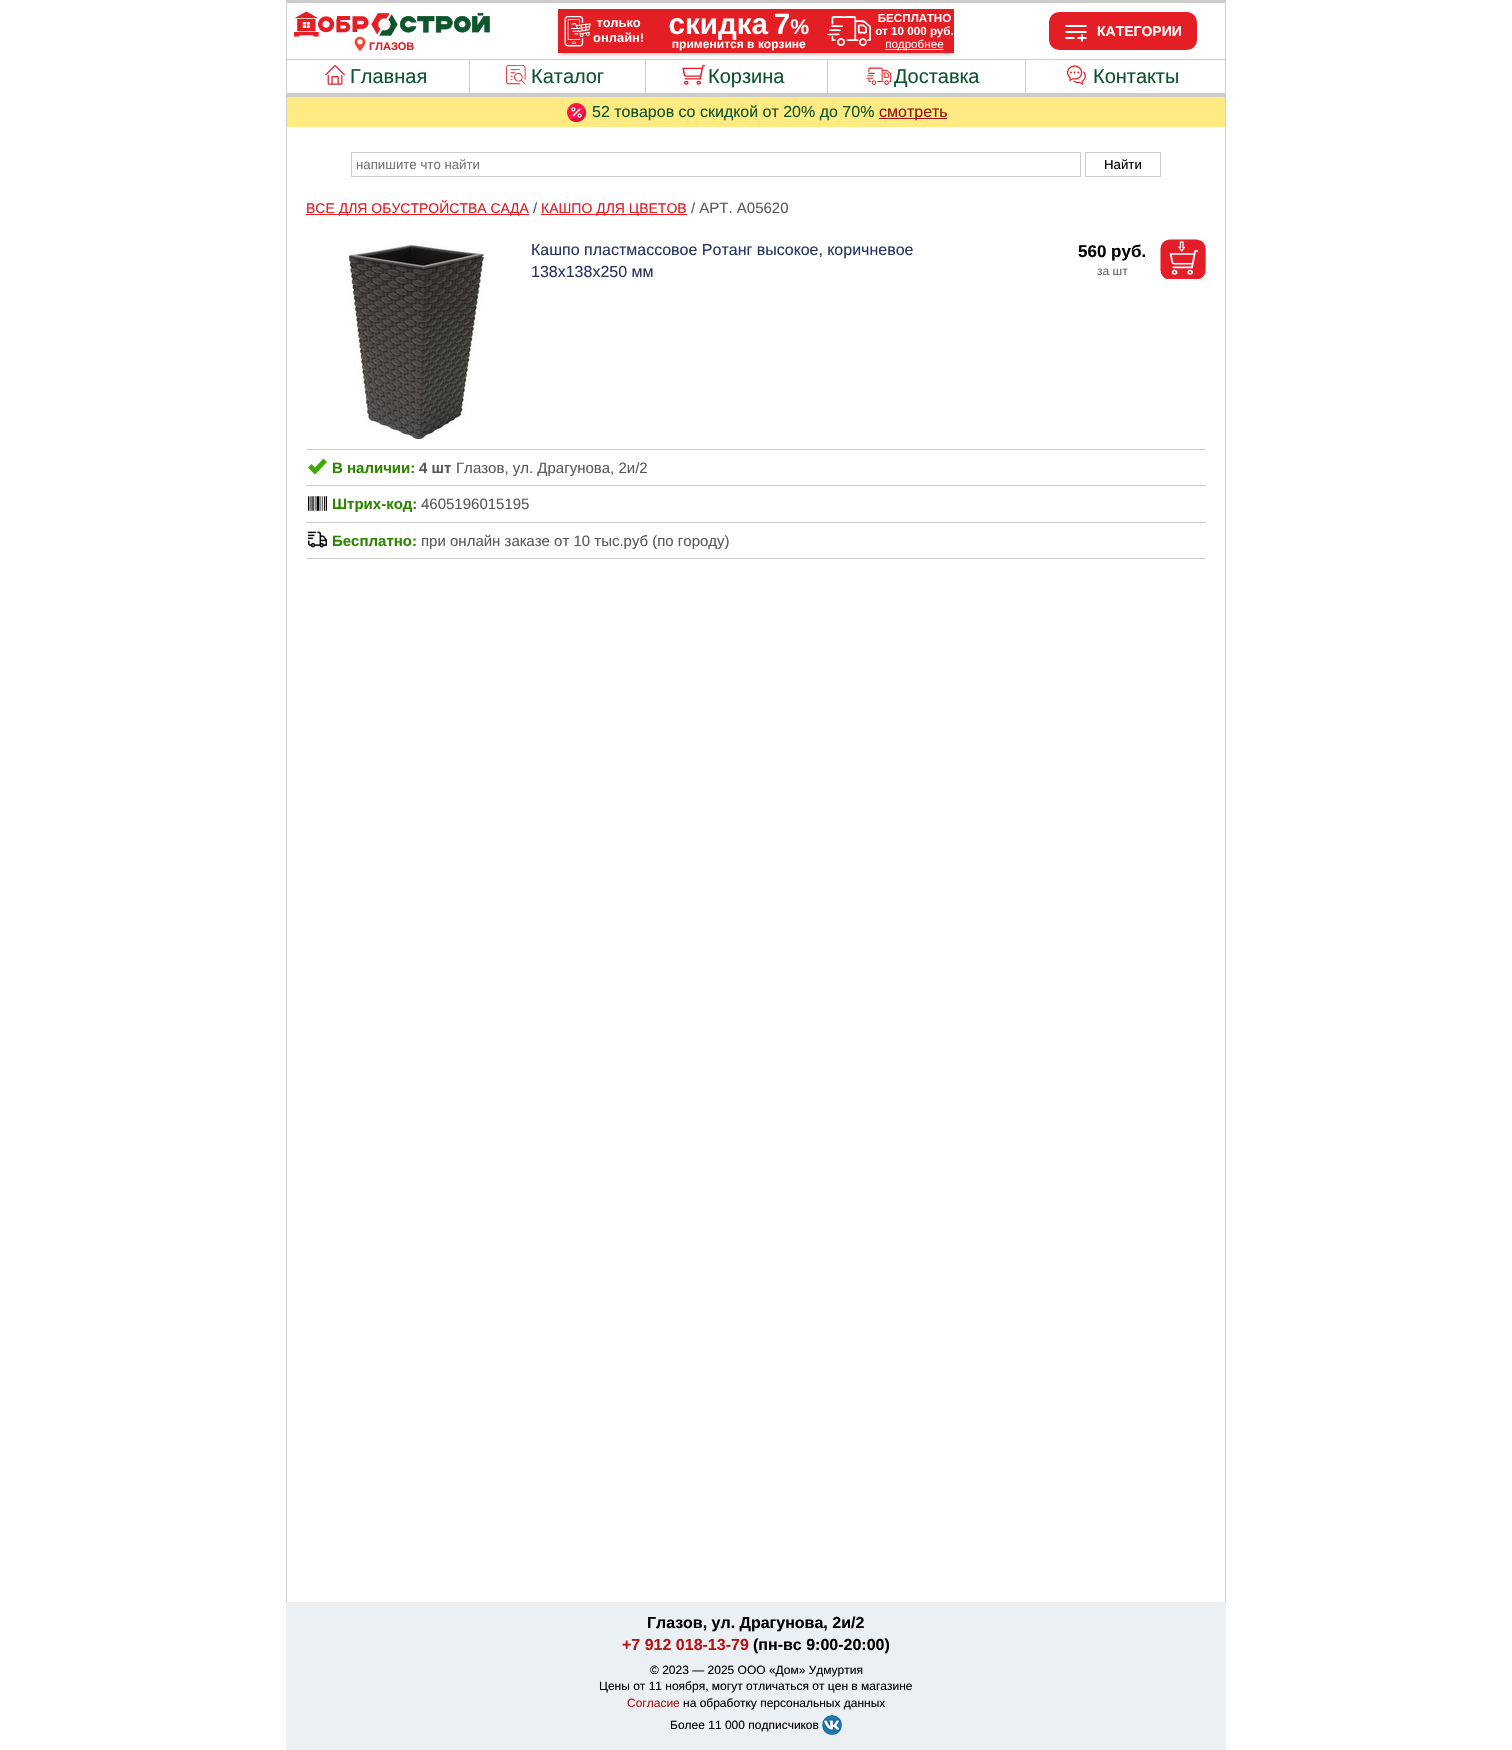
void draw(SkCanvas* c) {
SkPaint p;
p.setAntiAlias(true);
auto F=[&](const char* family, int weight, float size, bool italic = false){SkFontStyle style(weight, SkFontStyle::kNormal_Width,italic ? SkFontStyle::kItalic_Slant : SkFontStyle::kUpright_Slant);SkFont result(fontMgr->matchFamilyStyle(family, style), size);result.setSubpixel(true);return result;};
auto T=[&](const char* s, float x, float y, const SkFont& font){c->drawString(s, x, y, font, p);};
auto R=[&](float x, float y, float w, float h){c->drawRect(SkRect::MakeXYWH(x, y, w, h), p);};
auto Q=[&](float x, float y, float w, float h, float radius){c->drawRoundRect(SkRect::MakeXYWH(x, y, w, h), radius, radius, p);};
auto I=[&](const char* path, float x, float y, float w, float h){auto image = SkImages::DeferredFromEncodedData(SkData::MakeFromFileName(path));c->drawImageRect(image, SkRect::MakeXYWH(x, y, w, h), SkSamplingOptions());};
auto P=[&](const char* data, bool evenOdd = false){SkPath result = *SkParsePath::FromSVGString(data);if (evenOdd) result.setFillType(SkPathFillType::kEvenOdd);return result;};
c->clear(0xffffffff);
p.setColor(0xffcccccc);
R(287,59,938,1);
R(645,60,1,33);
R(827,60,1,33);
p.setColor(0x4d000000);
p.setMaskFilter(SkMaskFilter::MakeBlur(kNormal_SkBlurStyle, 2));
c->drawRect(SkRect::MakeXYWH(560,14,392,40),p);
p.setMaskFilter(nullptr);
I("1.png",558,9,396,44);
p.setColor(0xffcccccc);
R(286,0,940,3);
R(1225,0,1,1602);
R(286,94,940,3);
R(286,0,1,1602);
p.setColor(0xffe31e24);
Q(1049,12,148,38,10);
I("2.png",1065,25,22,17);
auto f1 = F("Liberation Sans",700,14);
p.setColor(0xffffffff);
T("КАТЕГОРИИ",1097,36,f1);
I("3.png",293,11,197,26);
I("4.png",354,36,12,16);
auto f2 = F("Liberation Sans",700,11);
p.setColor(0xffe31e24);
T("ГЛАЗОВ",369,50,f2);
p.setColor(0xffcccccc);
R(287,93,938,1);
R(469,60,1,33);
I("5.png",325,64,20,21);
auto f3 = F("Liberation Sans",400,20);
p.setColor(0xff0e542d);
T("Главная",350,83,f3);
I("6.png",506,65,20,20);
T("Каталог",531,83,f3);
I("7.png",682,65,24,20);
T("Корзина",708,83,f3);
p.setColor(0xffcccccc);
R(1025,60,1,33);
I("8.png",866,67,26,18);
p.setColor(0xff0e542d);
T("Доставка",894,83,f3);
I("9.png",1067,65,19,20);
T("Контакты",1093,83,f3);
p.setColor(0xffffeb81);
R(287,97,938,30);
I("10.png",567,103,19,19);
auto f4 = F("Liberation Sans",400,16);
p.setColor(0xff0e542d);
T("52 товаров со скидкой от 20% до 70%",592,117,f4);
p.setColor(0xff961212);
R(879,118,68,1);
T("смотреть",879,117,f4);
p.setStroke(true);
p.setStrokeWidth(1);
p.setColor(0xffcccccc);
c->drawRect(SkRect::MakeXYWH(351.5,152.5,729,24),p);
auto f5 = F("Liberation Sans",400,13.25);
p.setStroke(false);
p.setColor(0xff757575);
T("напишите что найти",356,169,f5);
p.setStroke(true);
p.setColor(0xffcccccc);
c->drawRect(SkRect::MakeXYWH(1085.5,152.5,75,24),p);
p.setStroke(false);
p.setColor(0xff000000);
T("Найти",1104,169,f5);
p.setColor(0xffe31e24);
R(306,214,223,1);
auto f6 = F("Liberation Sans",400,14);
T("ВСЕ ДЛЯ ОБУСТРОЙСТВА САДА",306,213,f6);
auto f7 = F("Liberation Sans",400,15);
p.setColor(0xff595959);
T("/",533,213,f7);
p.setColor(0xffe31e24);
R(541,214,146,1);
T("КАШПО ДЛЯ ЦВЕТОВ",541,213,f6);
p.setColor(0xff595959);
T("/ АРТ. A05620",691,213,f7);
p.setColor(0xffcccccc);
R(306,449,900,1);
I("11.png",347,243,137,196);
p.setColor(0xff263463);
T("Кашпо пластмассовое Ротанг высокое, коричневое",531,255,f4);
T("138х138х250 мм",531,277,f4);
auto f8 = F("Liberation Sans",700,17);
p.setColor(0xff000000);
T("560 руб.",1078,257,f8);
I("12.png",1160,239,46,40);
auto f9 = F("Liberation Sans",400,12);
p.setColor(0xff666666);
T("за шт",1097,275,f9);
p.setColor(0xffcccccc);
R(306,485,900,1);
p.setColor(0xff3caa00);
c->drawPath(P("M323.5 458.5l-8.5 9l-3.5-3.5l-3.5 3.5l7 7l12-12.5z"),p);
auto f10 = F("Liberation Sans",700,15);
p.setColor(0xff2e8500);
T("В наличии:",332,473,f10);
p.setColor(0xff595959);
T("4 шт",419,473,f10);
T("Глазов, ул. Драгунова, 2и/2",456,473,f7);
p.setColor(0xffcccccc);
R(306,522,900,1);
I("13.png",308,496,19,15);
p.setColor(0xff2e8500);
T("Штрих-код:",332,509,f10);
p.setColor(0xff595959);
T("4605196015195",421,509,f7);
p.setColor(0xffcccccc);
R(306,558,900,1);
I("14.png",308,531,19,17);
p.setColor(0xff2e8500);
T("Бесплатно:",332,546,f10);
p.setColor(0xff595959);
T("при онлайн заказе от 10 тыс.руб (по городу)",421,546,f7);
p.setColor(0xffebf0f4);
R(286,1602,940,148);
auto f11 = F("Liberation Sans",700,16);
p.setColor(0xff000000);
T("Глазов, ул. Драгунова, 2и/2",647,1628,f11);
p.setColor(0xffb51717);
T("+7 912 018-13-79",622,1650,f11);
p.setColor(0xff000000);
T("(пн-вс 9:00-20:00)",753,1650,f11);
T("© 2023 — 2025 ООО «Дом» Удмуртия",650,1674,f9);
T("Цены от 11 ноября, могут отличаться от цен в магазине",599,1690,f9);
p.setColor(0xffb51717);
T("Согласие",627,1707,f9);
p.setColor(0xff000000);
T("на обработку персональных данных",683,1707,f9);
T("Более 11 000 подписчиков",670,1729,f9);
I("15.png",822,1715,20,20);
}
